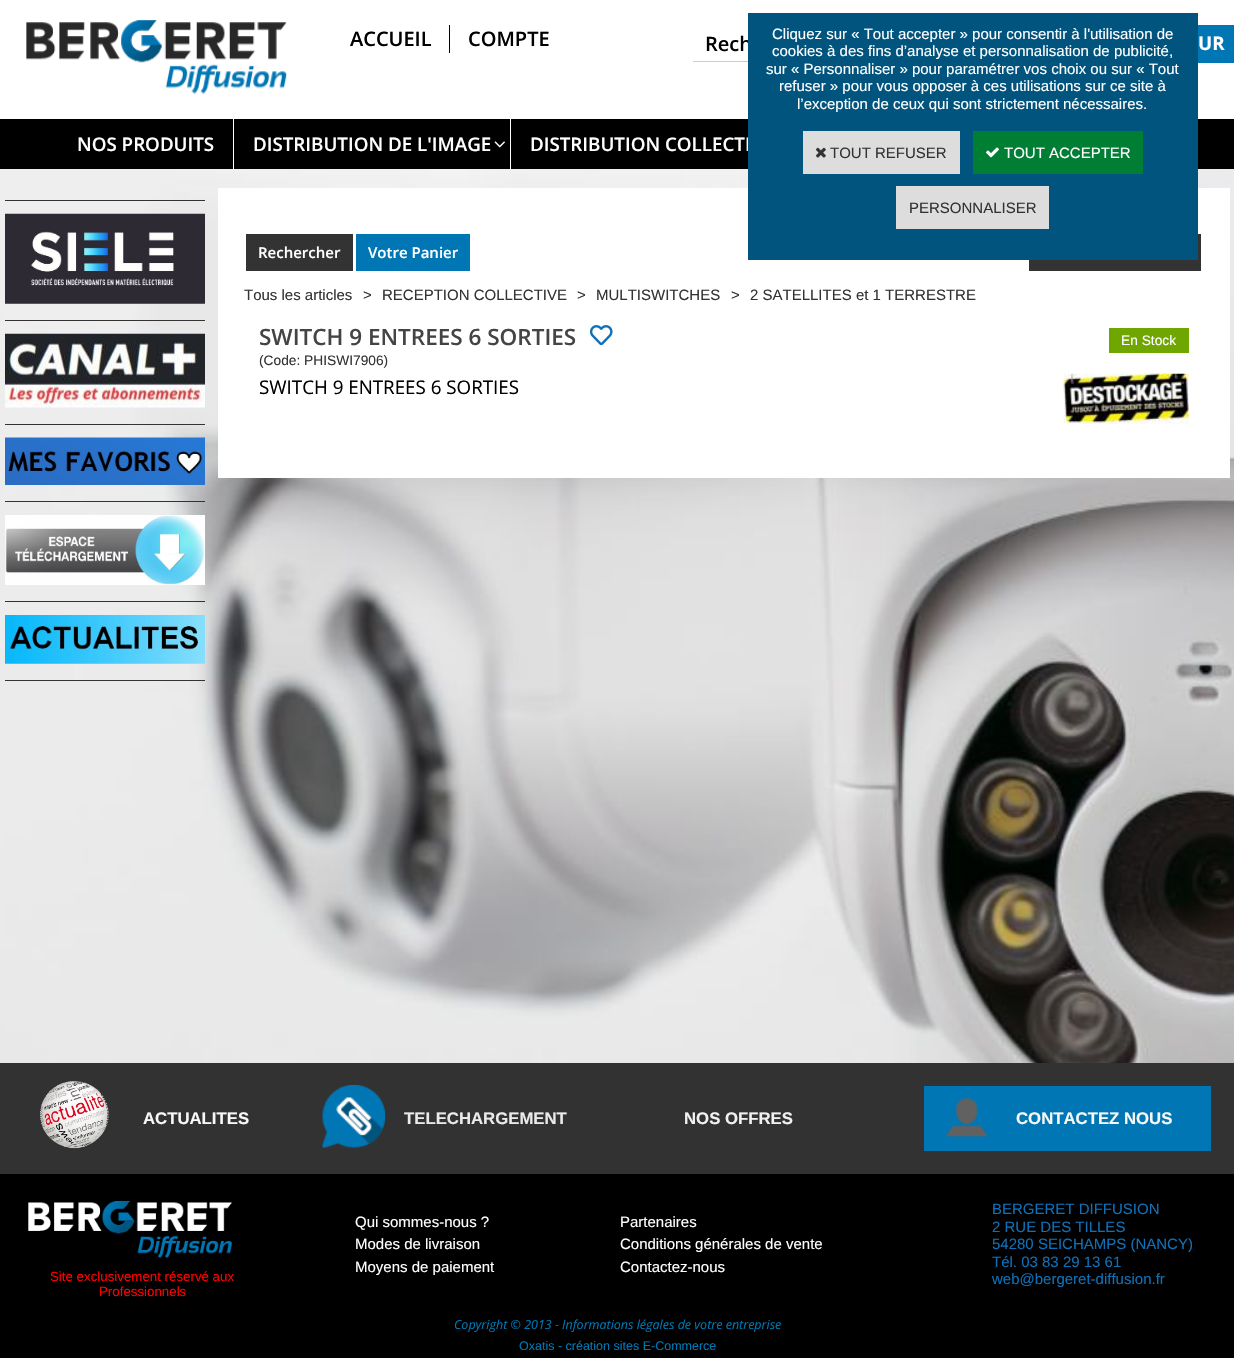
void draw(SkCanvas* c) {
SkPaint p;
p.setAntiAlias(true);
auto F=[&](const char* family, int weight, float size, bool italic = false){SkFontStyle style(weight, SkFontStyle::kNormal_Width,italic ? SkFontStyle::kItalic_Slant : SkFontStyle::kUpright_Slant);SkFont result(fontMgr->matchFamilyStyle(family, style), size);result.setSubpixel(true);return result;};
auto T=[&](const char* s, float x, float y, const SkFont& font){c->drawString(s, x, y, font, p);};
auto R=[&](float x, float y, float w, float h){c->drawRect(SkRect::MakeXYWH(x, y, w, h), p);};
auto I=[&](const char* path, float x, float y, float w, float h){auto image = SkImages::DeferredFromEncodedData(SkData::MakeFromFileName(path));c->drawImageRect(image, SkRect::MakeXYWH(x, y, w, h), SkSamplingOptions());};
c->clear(0xffffffff);
I("1.png",0,169,1234,894);
p.setColor(0xff000000);
R(0,119,1234,50);
auto f1 = F("Open Sans",600,20);
T("Rech",705,51,f1);
auto f2 = F("Open Sans",600,18.75);
p.setColor(0xffffffff);
T("DISTRIBUTION COLLECTI",530,151,f2);
R(218,188,1012,290);
p.setColor(0xff333333);
R(1029,234,172,37);
p.setColor(0xff00547e);
R(748,13,450,247);
auto f3 = F("Liberation Sans",400,15);
p.setColor(0xffffffff);
T("Cliquez sur « Tout accepter » pour consentir à l'utilisation de",772,39,f3);
T("cookies à des fins d’analyse et personnalisation de publicité,",772,56,f3);
T("sur « Personnaliser » pour paramétrer vos choix ou sur « Tout",766,74,f3);
T("refuser » pour vous opposer à ces utilisations sur ce site à",779,91,f3);
T("l’exception de ceux qui sont strictement nécessaires.",797,109,f3);
p.setColor(0xffdddddd);
R(803,131,157,43);
I("2.png",816,147,10,11);
p.setColor(0xff333333);
T("TOUT REFUSER",830,158,f3);
p.setColor(0xff007e33);
R(973,131,170,43);
I("3.png",986,147,13,11);
p.setColor(0xffffffff);
T("TOUT ACCEPTER",1004,158,f3);
p.setColor(0xffdddddd);
R(896,186,153,43);
p.setColor(0xff333333);
T("PERSONNALISER",909,213,f3);
I("4.png",26,20,261,75);
p.setColor(0xff000000);
T("ACCUEIL",350,46,f1);
R(449,25,1,28);
T("COMPTE",468,46,f1);
p.setColor(0xffcccccc);
R(693,61,55,1);
p.setColor(0xff0077b4);
R(1198,25,36,38);
auto f4 = F("Open Sans",700,18.75);
p.setColor(0xffffffff);
T("UR",1198,50,f4);
T("NOS PRODUITS",77,151,f2);
R(233,119,1,50);
T("DISTRIBUTION DE L'IMAGE",253,151,f2);
I("5.png",494,141,11,7);
R(510,119,1,50);
p.setColor(0xff333333);
R(5,200,200,1);
I("6.png",5,213,200,91);
R(5,320,200,1);
I("7.png",5,333,200,75);
R(5,424,200,1);
I("8.png",5,437,200,48);
R(5,501,200,1);
I("9.png",5,515,200,70);
R(5,601,200,1);
I("10.png",5,615,200,49);
R(5,680,200,1);
R(246,234,107,37);
auto f5 = F("Open Sans",600,15);
p.setColor(0xffffffff);
T("Rechercher",258,258,f5);
p.setColor(0xff0077b4);
R(356,234,114,37);
p.setColor(0xffffffff);
T("Votre Panier",368,258,f5);
p.setColor(0xff333333);
T("Tous les articles",244,300,f3);
T(">",363,300,f3);
T("RECEPTION COLLECTIVE",382,300,f3);
T(">",577,300,f3);
T("MULTISWITCHES",596,300,f3);
T(">",731,300,f3);
T("2 SATELLITES et 1 TERRESTRE",750,300,f3);
auto f6 = F("Open Sans",600,22.5);
p.setColor(0xff444444);
T("SWITCH 9 ENTREES 6 SORTIES",259,345,f6);
I("11.png",590,325,23,20);
auto f7 = F("Liberation Sans",400,13.75);
p.setColor(0xff333333);
T("(Code: PHISWI7906)",259,365,f7);
p.setColor(0xff6fa600);
R(1109,328,80,25);
p.setColor(0xffffffff);
T("En Stock",1121,345,f7);
auto f8 = F("Open Sans",400,18.75);
p.setColor(0xff000000);
T("SWITCH 9 ENTREES 6 SORTIES",259,394,f8);
I("12.png",1063,373,126,51);
R(0,1174,1234,184);
p.setColor(0xff323232);
R(0,1063,1234,111);
I("13.png",40,1080,69,69);
auto f9 = F("Liberation Sans",700,16.75);
p.setColor(0xfff8f8f8);
T("ACTUALITES",143,1124,f9);
I("14.png",322,1085,63,63);
p.setColor(0xffeaeaea);
T("TELECHARGEMENT",404,1124,f9);
p.setColor(0xfff1f1f1);
T("NOS OFFRES",684,1124,f9);
p.setColor(0xff0077b4);
R(924,1086,287,65);
I("15.png",945,1097,43,40);
p.setColor(0xfff8f8f8);
T("CONTACTEZ NOUS",1016,1124,f9);
p.setColor(0xffffffff);
T("Qui sommes-nous ?",355,1227,f3);
T("Modes de livraison",355,1249,f3);
T("Moyens de paiement",355,1272,f3);
T("Partenaires",620,1227,f3);
T("Conditions générales de vente",620,1249,f3);
T("Contactez-nous",620,1272,f3);
p.setColor(0xff0f70b7);
T("BERGERET DIFFUSION",992,1214,f3);
T("2 RUE DES TILLES",992,1232,f3);
T("54280 SEICHAMPS (NANCY)",992,1249,f3);
T("Tél. 03 83 29 13 61",992,1267,f3);
T("web@bergeret-diffusion.fr",992,1284,f3);
I("16.png",28,1200,204,59);
auto f10 = F("Liberation Sans",400,13.3);
p.setColor(0xffff0000);
T("Site exclusivement réservé aux",50,1281,f10);
T("Professionnels",99,1296,f10);
auto f11 = F("Open Sans",400,12.5,true);
p.setColor(0xff0077b4);
T("Copyright © 2013 - Informations légales de votre entreprise",454,1329,f11);
auto f12 = F("Liberation Sans",400,12.5);
T("Oxatis - création sites E-Commerce",519,1350,f12);
}
